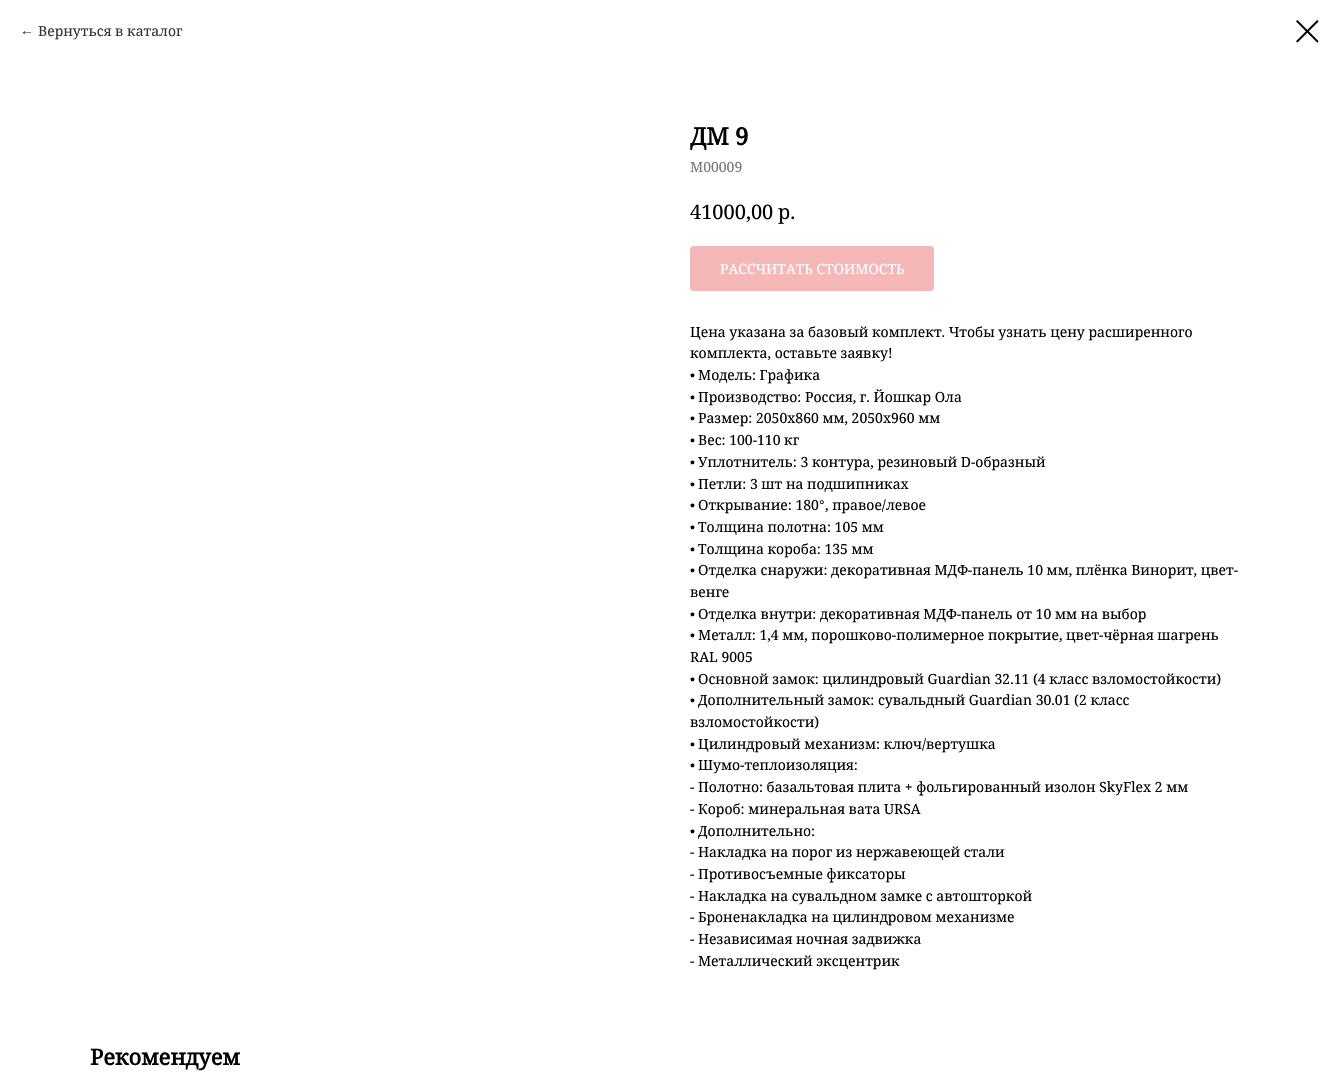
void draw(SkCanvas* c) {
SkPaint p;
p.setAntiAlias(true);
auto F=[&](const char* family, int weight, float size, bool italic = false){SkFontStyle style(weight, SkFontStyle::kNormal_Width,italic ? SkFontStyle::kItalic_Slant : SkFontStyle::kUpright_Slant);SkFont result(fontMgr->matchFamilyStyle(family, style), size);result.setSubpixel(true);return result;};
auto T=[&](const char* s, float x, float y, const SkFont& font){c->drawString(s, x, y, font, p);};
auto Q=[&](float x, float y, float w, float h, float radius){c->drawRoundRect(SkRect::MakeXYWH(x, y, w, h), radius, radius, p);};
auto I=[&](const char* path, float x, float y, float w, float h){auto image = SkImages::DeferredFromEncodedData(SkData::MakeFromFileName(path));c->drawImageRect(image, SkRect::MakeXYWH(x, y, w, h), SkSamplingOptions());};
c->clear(0xffffffff);
auto f1 = F("Liberation Sans",400,14);
p.setColor(0xff333333);
T("←",20,35,f1);
auto f2 = F("Noto Serif",400,14);
T("Вернуться в каталог",38,36,f2);
I("1.png",1296,20,23,23);
auto f3 = F("Noto Serif",700,24);
p.setColor(0xff000000);
T("ДМ 9",690,145,f3);
p.setColor(0xff777777);
T("M00009",690,172,f2);
auto f4 = F("Noto Serif",400,20);
p.setColor(0xff000000);
T("41000,00",690,219,f4);
T("р.",778,219,f4);
p.setColor(0xfff4b8b8);
Q(690,246,244,45,4);
p.setColor(0xffffffff);
T("РАССЧИТАТЬ СТОИМОСТЬ",720,274,f2);
p.setColor(0xff000000);
T("Цена указана за базовый комплект. Чтобы узнать цену расширенного",690,337,f2);
T("комплекта, оставьте заявку!",690,358,f2);
T("•",690,380,f1);
T("Модель: Графика",698,380,f2);
T("•",690,402,f1);
T("Производство: Россия, г. Йошкар Ола",698,402,f2);
T("•",690,423,f1);
T("Размер: 2050х860 мм, 2050х960 мм",698,423,f2);
T("•",690,445,f1);
T("Вес: 100-110 кг",698,445,f2);
T("•",690,467,f1);
T("Уплотнитель: 3 контура, резиновый D-образный",698,467,f2);
T("•",690,489,f1);
T("Петли: 3 шт на подшипниках",698,489,f2);
T("Открывание: 180",698,510,f2);
T("°",819,510,f1);
T(", правое/левое",825,510,f2);
T("•",690,510,f1);
T("•",690,532,f1);
T("Толщина полотна: 105 мм",698,532,f2);
T("•",690,554,f1);
T("Толщина короба: 135 мм",698,554,f2);
T("•",690,575,f1);
T("Отделка снаружи: декоративная МДФ-панель 10 мм, плёнка Винорит, цвет-",698,575,f2);
T("венге",690,597,f2);
T("•",690,619,f1);
T("Отделка внутри: декоративная МДФ-панель от 10 мм на выбор",698,619,f2);
T("•",690,640,f1);
T("Металл: 1,4 мм, порошково-полимерное покрытие, цвет-чёрная шагрень",698,640,f2);
T("RAL 9005",690,662,f2);
T("•",690,684,f1);
T("Основной замок: цилиндровый Guardian 32.11 (4 класс взломостойкости)",698,684,f2);
T("•",690,705,f1);
T("Дополнительный замок: сувальдный Guardian 30.01 (2 класс",698,705,f2);
T("взломостойкости)",690,727,f2);
T("•",690,749,f1);
T("Цилиндровый механизм: ключ/вертушка",698,749,f2);
T("•",690,770,f1);
T("Шумо-теплоизоляция:",698,770,f2);
T("- Полотно: базальтовая плита + фольгированный изолон SkyFlex 2 мм",690,792,f2);
T("- Короб: минеральная вата URSA",690,814,f2);
T("•",690,836,f1);
T("Дополнительно:",698,836,f2);
T("- Накладка на порог из нержавеющей стали",690,857,f2);
T("- Противосъемные фиксаторы",690,879,f2);
T("- Накладка на сувальдном замке с автошторкой",690,901,f2);
T("- Броненакладка на цилиндровом механизме",690,922,f2);
T("- Независимая ночная задвижка",690,944,f2);
T("- Металлический эксцентрик",690,966,f2);
auto f5 = F("Noto Serif",700,22);
T("Рекомендуем",90,1065,f5);
}
